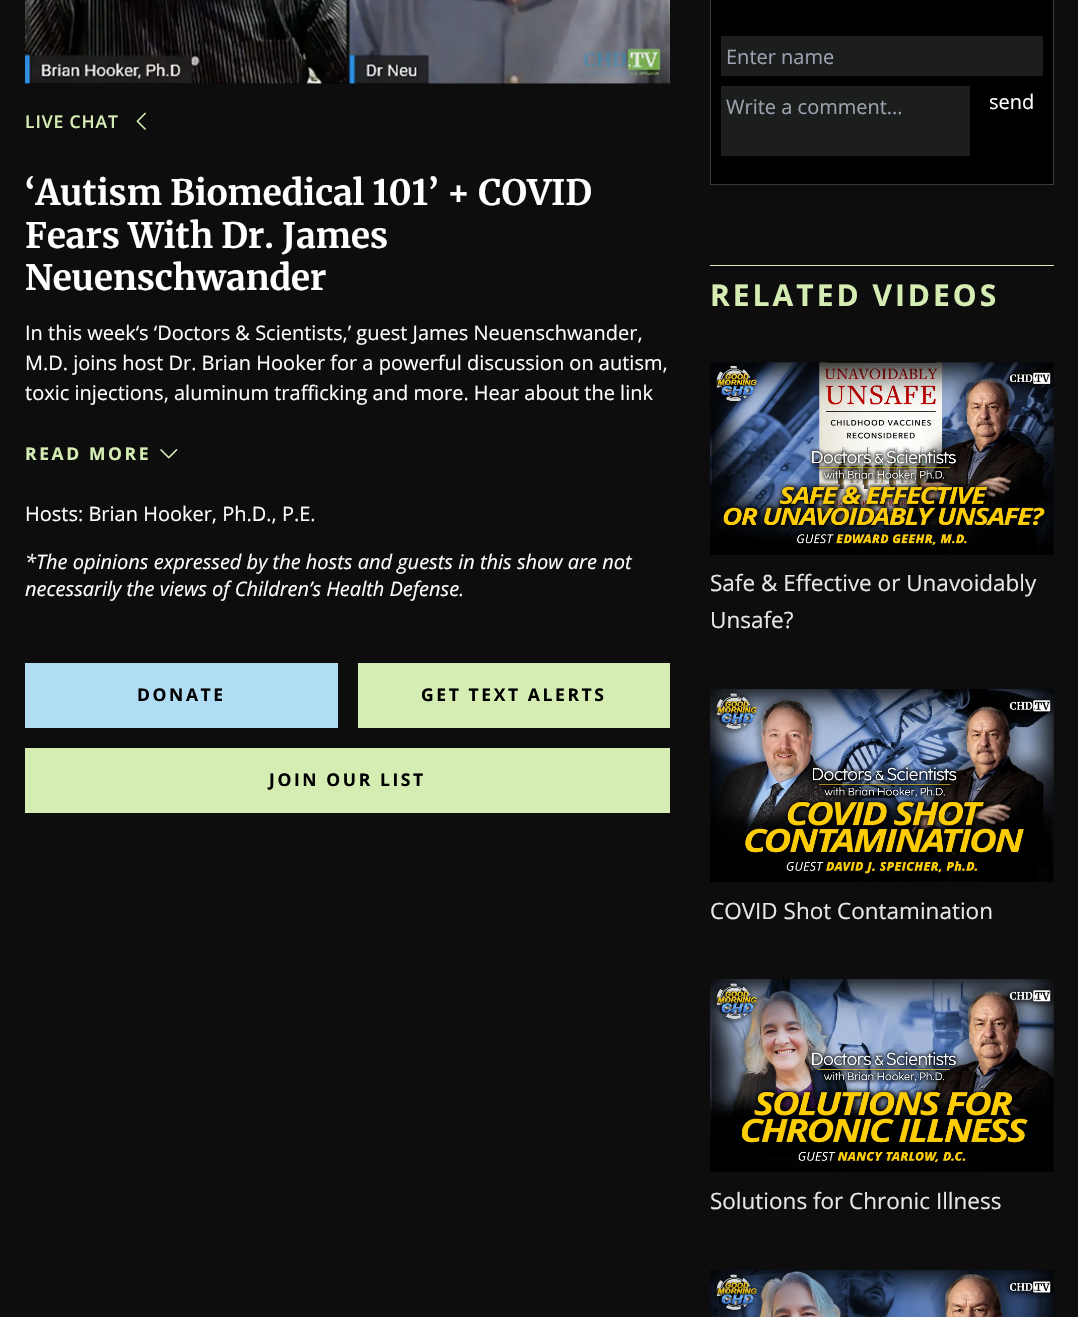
void draw(SkCanvas* c) {
SkPaint p;
p.setAntiAlias(true);
auto F=[&](const char* family, int weight, float size, bool italic = false){SkFontStyle style(weight, SkFontStyle::kNormal_Width,italic ? SkFontStyle::kItalic_Slant : SkFontStyle::kUpright_Slant);SkFont result(fontMgr->matchFamilyStyle(family, style), size);result.setSubpixel(true);return result;};
auto T=[&](const char* s, float x, float y, const SkFont& font){c->drawString(s, x, y, font, p);};
auto L=[&](const char* s, float x, float y, const SkFont& font, const SkPaint& ink, float letter, float word){std::vector<SkGlyphID> glyphs(font.countText(s, strlen(s), SkTextEncoding::kUTF8));std::vector<float> xs(glyphs.size());font.textToGlyphs(s, strlen(s), SkTextEncoding::kUTF8, glyphs);font.getXPos(glyphs, xs, x);float extra = 0;for (size_t i = 0; i < glyphs.size(); i++) {xs[i] += extra;extra += letter + word * (glyphs[i] == font.unicharToGlyph(' '));}c->drawTextBlob(SkTextBlob::MakeFromPosHGlyphs(glyphs, xs, y, font), 0, 0, ink);};
auto R=[&](float x, float y, float w, float h){c->drawRect(SkRect::MakeXYWH(x, y, w, h), p);};
auto I=[&](const char* path, float x, float y, float w, float h){auto image = SkImages::DeferredFromEncodedData(SkData::MakeFromFileName(path));c->drawImageRect(image, SkRect::MakeXYWH(x, y, w, h), SkSamplingOptions());};
c->clear(0xff0d0d0d);
I("1.png",25,0,645,84);
auto f1 = F("Open Sans",600,17.5);
p.setColor(0xffd5edb3);
L("LIVE CHAT",25,128,f1,p,.9,0);
I("2.png",136,112,10,18);
auto f2 = F("Merriweather",700,35);
p.setColor(0xffffffff);
T("‘Autism Biomedical 101’ + COVID",25,205,f2);
T("Fears With Dr. James",25,248,f2);
T("Neuenschwander",25,290,f2);
auto f3 = F("Open Sans",400,20);
T("In this week‘s ‘Doctors & Scientists,’ guest James Neuenschwander,",25,340,f3);
T("M.D. joins host Dr. Brian Hooker for a powerful discussion on autism,",25,370,f3);
T("toxic injections, aluminum trafficking and more. Hear about the link",25,400,f3);
auto f4 = F("Open Sans",700,17.5);
p.setColor(0xffd5edb3);
L("READ MORE",25,460,f4,p,2.6,0);
I("3.png",160,449,18,10);
p.setColor(0xffffffff);
T("Hosts: Brian Hooker, Ph.D., P.E.",25,521,f3);
auto f5 = F("Open Sans",400,20,true);
T("*The opinions expressed by the hosts and guests in this show are not",25,569,f5);
T("necessarily the views of Children’s Health Defense.",25,596,f5);
p.setColor(0xffb0ddf3);
R(25,663,313,65);
p.setColor(0xff000000);
L("DONATE",137,701,f4,p,2.6,0);
p.setColor(0xffd5edb3);
R(358,663,312,65);
p.setColor(0xff000000);
L("GET TEXT ALERTS",421,701,f4,p,2.6,0);
p.setColor(0xffd5edb3);
R(25,748,645,65);
p.setColor(0xff000000);
L("JOIN OUR LIST",269,786,f4,p,2.6,0);
c->drawRect(SkRect::MakeXYWH(710.5,-.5,343,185),p);
p.setStroke(true);
p.setStrokeWidth(1);
p.setColor(0xff373a3c);
c->drawRect(SkRect::MakeXYWH(710.5,-.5,343,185),p);
p.setStroke(false);
p.setColor(0xff1c1d1d);
R(721,36,322,40);
p.setColor(0xff9ca3af);
T("Enter name",726,64,f3);
p.setColor(0xff1c1d1d);
R(721,86,249,70);
p.setColor(0xff9ca3af);
T("Write a comment...",726,114,f3);
p.setColor(0xffffffff);
T("send",989,109,f3);
p.setColor(0xffd5edb3);
R(710,265,344,1);
auto f6 = F("Open Sans",700,30);
L("RELATED VIDEOS",710,306,f6,p,3,0);
I("4.png",710,362,344,193);
auto f7 = F("Open Sans",400,22.5);
p.setColor(0xffe7e7e7);
T("Safe & Effective or Unavoidably",710,591,f7);
T("Unsafe?",710,628,f7);
I("5.png",710,689,344,193);
T("COVID Shot Contamination",710,919,f7);
I("6.png",710,979,344,193);
T("Solutions for Chronic Illness",710,1209,f7);
I("7.png",710,1270,344,47);
}
